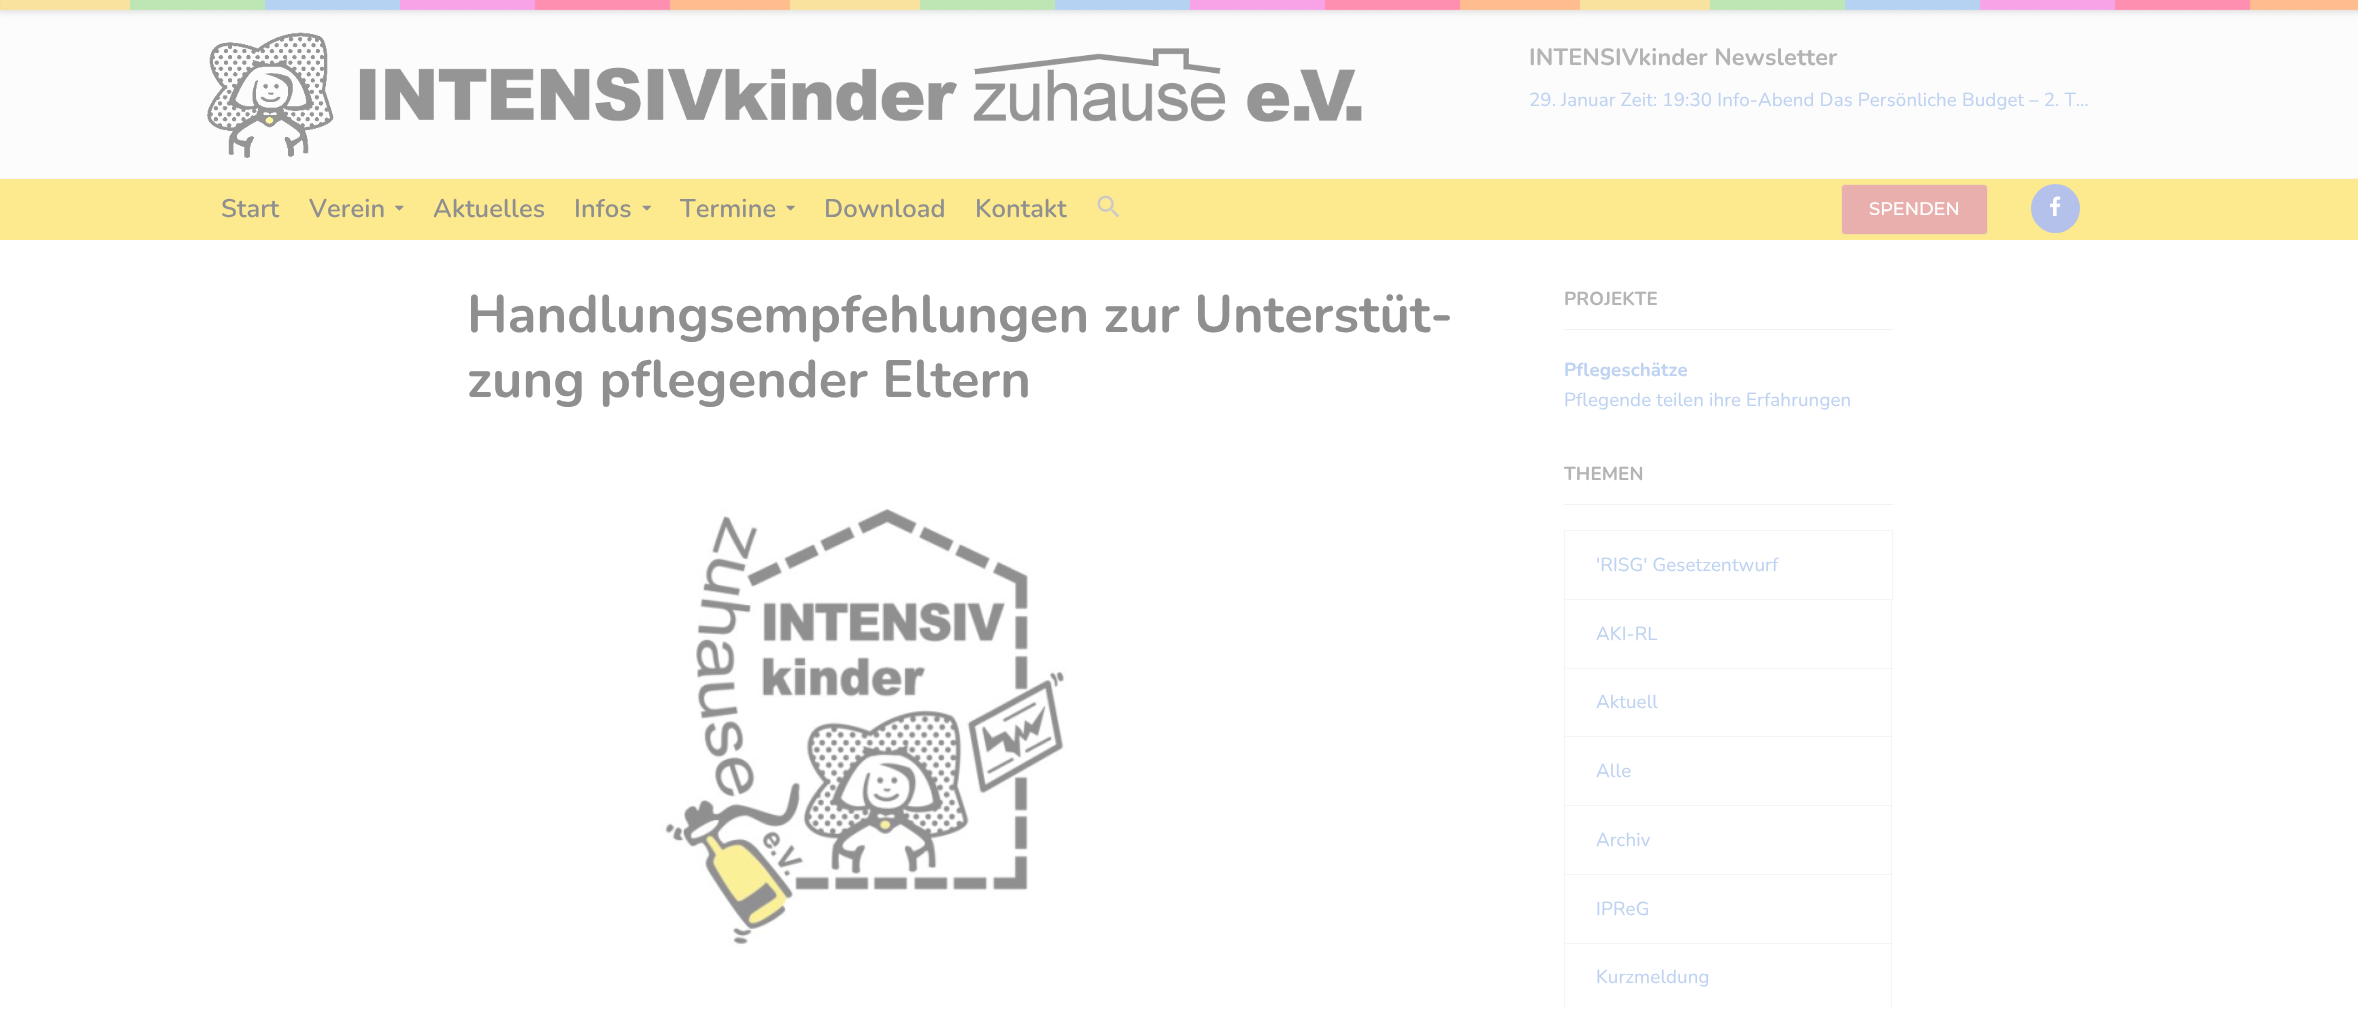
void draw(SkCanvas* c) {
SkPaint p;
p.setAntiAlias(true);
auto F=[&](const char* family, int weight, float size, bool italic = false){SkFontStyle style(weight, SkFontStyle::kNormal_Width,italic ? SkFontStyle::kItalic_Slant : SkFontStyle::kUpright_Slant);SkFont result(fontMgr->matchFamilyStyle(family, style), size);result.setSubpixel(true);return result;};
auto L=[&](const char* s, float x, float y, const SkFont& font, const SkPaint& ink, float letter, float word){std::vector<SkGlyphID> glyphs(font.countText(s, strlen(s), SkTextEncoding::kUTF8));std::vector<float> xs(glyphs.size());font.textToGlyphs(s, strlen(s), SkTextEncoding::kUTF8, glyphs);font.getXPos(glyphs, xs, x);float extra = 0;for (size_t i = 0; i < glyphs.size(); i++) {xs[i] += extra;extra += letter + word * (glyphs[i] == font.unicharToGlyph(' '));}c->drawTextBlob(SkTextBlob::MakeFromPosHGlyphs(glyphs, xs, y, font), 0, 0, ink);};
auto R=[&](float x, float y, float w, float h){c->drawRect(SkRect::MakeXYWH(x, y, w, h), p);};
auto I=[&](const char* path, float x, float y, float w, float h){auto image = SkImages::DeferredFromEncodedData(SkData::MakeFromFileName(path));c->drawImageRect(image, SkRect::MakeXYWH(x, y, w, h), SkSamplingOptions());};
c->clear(0xffffffff);
I("1.png",0,0,2358,178);
p.setColor(0xfff4f4f4);
R(0,178,2358,1);
I("2.png",207,32,1155,126);
auto f1 = F("Nunito",700,23.5);
p.setColor(0xffb4b4b4);
L("INTENSIVkinder Newsletter",1529,65,f1,p,.12,0);
auto f2 = F("Nunito",400,18.75);
p.setColor(0xffbed2f2);
L("29. Januar Zeit: 19:30 Info-Abend Das Persönliche Budget – 2. T…",1529,106,f2,p,.12,0);
p.setColor(0xfffdea8f);
R(0,179,2358,61);
auto f3 = F("Nunito",600,25.5);
p.setColor(0xff8f8f8f);
L("Start",221,217,f3,p,.12,0);
L("Verein",309,217,f3,p,.12,0);
I("3.png",395,205,9,6);
L("Aktuelles",433,217,f3,p,.12,0);
L("Infos",574,217,f3,p,.12,0);
I("4.png",642,205,9,6);
L("Termine",680,217,f3,p,.12,0);
I("5.png",786,205,9,6);
L("Download",824,217,f3,p,.12,0);
L("Kontakt",975,217,f3,p,.12,0);
I("6.png",1097,195,23,23);
p.setColor(0xffe9afad);
c->drawRoundRect(SkRect::MakeXYWH(1841.5,184.5,146,50),3.5,3.5,p);
p.setStroke(true);
p.setStrokeWidth(1);
p.setColor(0xfff4e29c);
c->drawRoundRect(SkRect::MakeXYWH(1841.5,184.5,146,50),3.5,3.5,p);
auto f4 = F("Montserrat",700,17.5);
p.setStroke(false);
p.setColor(0xffffffff);
L("SPENDEN",1869,215,f4,p,.12,0);
p.setColor(0xffb4c1eb);
c->drawCircle(2055.5,208.5,24.5,p);
I("7.png",2050,196,11,20);
auto f5 = F("Nunito",700,52.5);
p.setColor(0xff8f8f8f);
L("Handlungsempfehlungen zur Unterstüt-",467,332,f5,p,.12,0);
L("zung pflegender Eltern",467,397,f5,p,.12,0);
I("8.png",659,507,409,440);
p.setColor(0xfff2f2f2);
R(1564,329,329,1);
auto f6 = F("Nunito",700,18.75);
p.setColor(0xffb4b4b4);
L("PROJEKTE",1564,305,f6,p,.12,0);
p.setColor(0xffbed2f2);
L("Pflegeschätze",1564,376,f6,p,.12,0);
L("Pflegende teilen ihre Erfahrungen",1564,406,f2,p,.12,0);
p.setColor(0xfff2f2f2);
R(1564,504,329,1);
p.setColor(0xffb4b4b4);
L("THEMEN",1564,480,f6,p,.12,0);
p.setStroke(true);
p.setColor(0xfff4f4f4);
c->drawRect(SkRect::MakeXYWH(1564.5,530.5,328,69),p);
p.setStroke(false);
p.setColor(0xffbed2f2);
L("'RISG' Gesetzentwurf",1596,571,f2,p,.12,0);
p.setColor(0xfff4f4f4);
R(1891,600,1,409);
R(1564,668,329,1);
R(1564,600,1,69);
p.setColor(0xffbed2f2);
L("AKI-RL",1596,640,f2,p,.12,0);
p.setColor(0xfff4f4f4);
R(1564,736,329,1);
R(1564,669,1,69);
p.setColor(0xffbed2f2);
L("Aktuell",1596,708,f2,p,.12,0);
p.setColor(0xfff4f4f4);
R(1564,805,329,1);
R(1564,738,1,68);
p.setColor(0xffbed2f2);
L("Alle",1596,777,f2,p,.12,0);
p.setColor(0xfff4f4f4);
R(1564,874,329,1);
R(1564,806,1,69);
p.setColor(0xffbed2f2);
L("Archiv",1596,846,f2,p,.12,0);
p.setColor(0xfff4f4f4);
R(1564,943,329,1);
R(1564,875,1,134);
p.setColor(0xffbed2f2);
L("IPReG",1596,915,f2,p,.12,0);
L("Kurzmeldung",1596,983,f2,p,.12,0);
}
